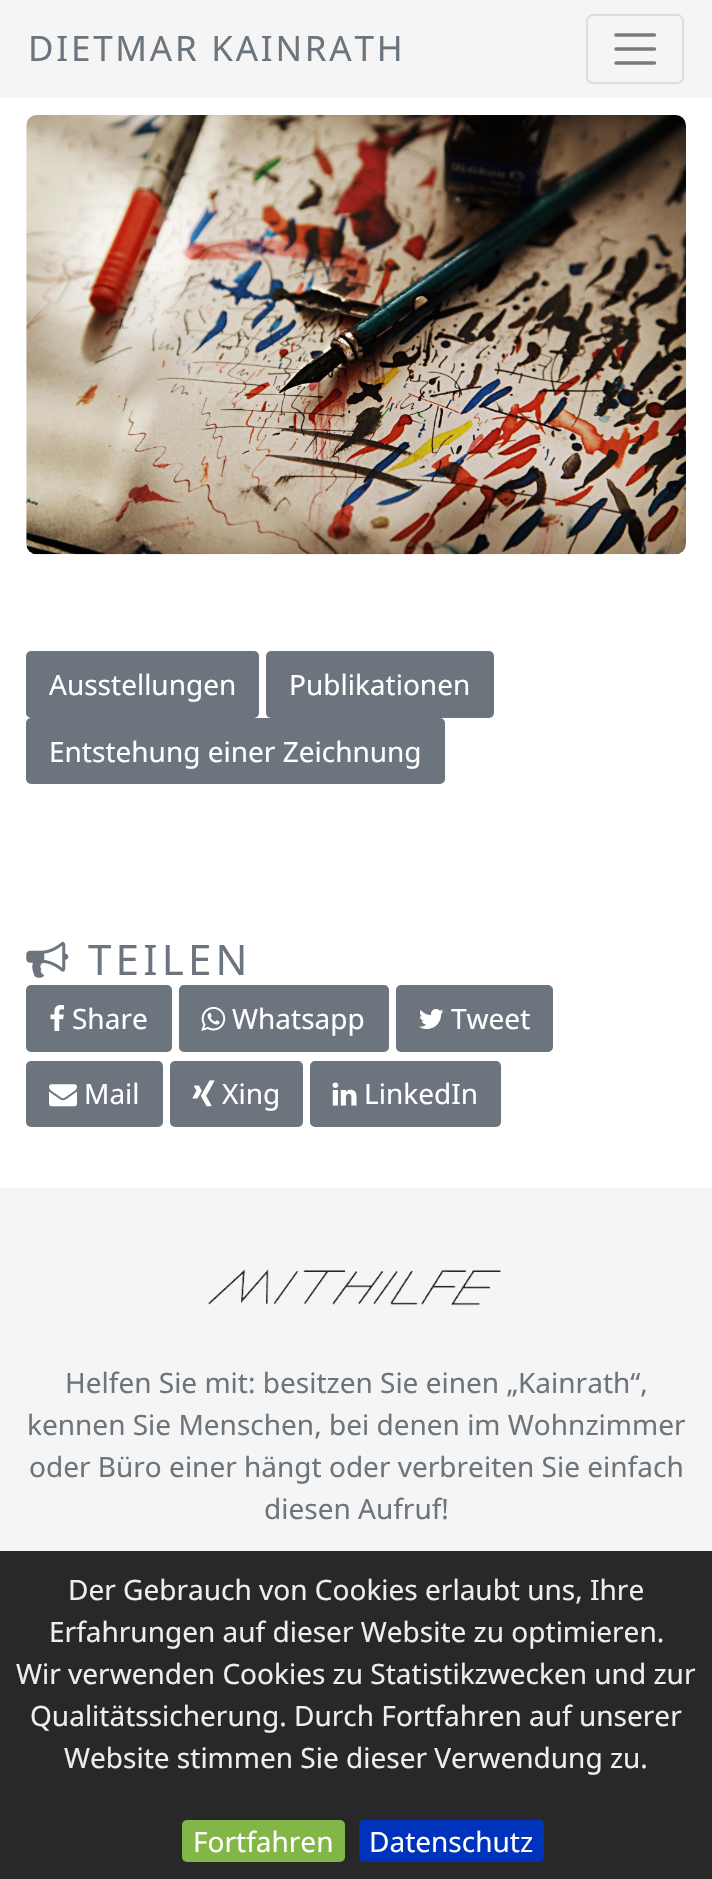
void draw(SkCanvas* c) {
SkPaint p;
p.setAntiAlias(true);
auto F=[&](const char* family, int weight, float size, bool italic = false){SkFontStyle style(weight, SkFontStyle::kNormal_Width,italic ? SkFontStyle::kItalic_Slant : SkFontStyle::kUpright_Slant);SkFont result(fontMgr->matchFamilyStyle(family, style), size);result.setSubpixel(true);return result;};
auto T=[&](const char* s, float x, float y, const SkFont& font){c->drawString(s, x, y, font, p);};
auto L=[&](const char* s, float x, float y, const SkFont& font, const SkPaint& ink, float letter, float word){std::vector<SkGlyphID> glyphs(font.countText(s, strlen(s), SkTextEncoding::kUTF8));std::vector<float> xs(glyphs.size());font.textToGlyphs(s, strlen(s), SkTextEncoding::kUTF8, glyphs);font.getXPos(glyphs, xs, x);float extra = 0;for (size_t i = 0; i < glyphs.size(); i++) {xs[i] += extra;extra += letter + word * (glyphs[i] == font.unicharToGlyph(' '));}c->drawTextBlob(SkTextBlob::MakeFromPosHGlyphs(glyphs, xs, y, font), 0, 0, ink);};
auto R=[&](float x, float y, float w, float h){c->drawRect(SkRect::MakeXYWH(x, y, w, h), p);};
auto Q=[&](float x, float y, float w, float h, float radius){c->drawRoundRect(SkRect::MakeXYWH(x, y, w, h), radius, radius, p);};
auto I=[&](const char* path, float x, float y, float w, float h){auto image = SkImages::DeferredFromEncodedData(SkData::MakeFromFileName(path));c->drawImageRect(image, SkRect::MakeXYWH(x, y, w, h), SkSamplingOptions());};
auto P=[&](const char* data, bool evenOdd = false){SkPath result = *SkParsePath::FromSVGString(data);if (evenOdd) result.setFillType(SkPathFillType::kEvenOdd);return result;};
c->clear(0xffffffff);
p.setColor(0xfff5f5f5);
R(0,0,712,98);
auto f1 = F("Noto Sans",400,35);
p.setColor(0xff6c757d);
L("DIETMAR KAINRATH",28,61,f1,p,2.75,0);
p.setStroke(true);
p.setStrokeWidth(2);
p.setColor(0xffdddddd);
c->drawRoundRect(SkRect::MakeXYWH(587,15,96,68),6,6,p);
p.setStrokeWidth(3.5);
p.setStrokeCap(SkPaint::kRound_Cap);
p.setColor(0xff7b7b7b);
c->drawPath(P("M616 35h38.5m-38.5 14h38.5m-38.5 14h38.5"),p);
I("1.png",26,115,660,440);
p.setStroke(false);
p.setColor(0xff6c757d);
c->drawRoundRect(SkRect::MakeXYWH(27,652,231,65),4,4,p);
p.setStroke(true);
p.setStrokeWidth(2);
p.setStrokeCap(SkPaint::kButt_Cap);
c->drawRoundRect(SkRect::MakeXYWH(27,652,231,65),4,4,p);
auto f2 = F("Noto Sans",400,28);
p.setStroke(false);
p.setColor(0xffffffff);
T("Ausstellungen",49,695,f2);
p.setColor(0xff6c757d);
c->drawRoundRect(SkRect::MakeXYWH(267,652,226,65),4,4,p);
p.setStroke(true);
c->drawRoundRect(SkRect::MakeXYWH(267,652,226,65),4,4,p);
p.setStroke(false);
p.setColor(0xffffffff);
T("Publikationen",289,695,f2);
p.setColor(0xff6c757d);
c->drawRoundRect(SkRect::MakeXYWH(27,719,417,64),4,4,p);
p.setStroke(true);
c->drawRoundRect(SkRect::MakeXYWH(27,719,417,64),4,4,p);
p.setStroke(false);
p.setColor(0xffffffff);
T("Entstehung einer Zeichnung",49,762,f2);
I("2.png",26,941,43,37);
auto f3 = F("Noto Sans",400,42);
p.setColor(0xff6c757d);
L("TEILEN",88,975,f3,p,4.25,0);
c->drawRoundRect(SkRect::MakeXYWH(27,986,144,65),4,4,p);
p.setStroke(true);
c->drawRoundRect(SkRect::MakeXYWH(27,986,144,65),4,4,p);
I("3.png",50,1005,14,26);
p.setStroke(false);
p.setColor(0xffffffff);
T("Share",72,1029,f2);
p.setColor(0xff6c757d);
c->drawRoundRect(SkRect::MakeXYWH(180,986,208,65),4,4,p);
p.setStroke(true);
c->drawRoundRect(SkRect::MakeXYWH(180,986,208,65),4,4,p);
I("4.png",201,1006,25,25);
p.setStroke(false);
p.setColor(0xffffffff);
T("Whatsapp",232,1029,f2);
p.setColor(0xff6c757d);
c->drawRoundRect(SkRect::MakeXYWH(397,986,155,65),4,4,p);
p.setStroke(true);
c->drawRoundRect(SkRect::MakeXYWH(397,986,155,65),4,4,p);
I("5.png",419,1009,25,20);
p.setStroke(false);
p.setColor(0xffffffff);
T("Tweet",451,1029,f2);
p.setColor(0xff6c757d);
c->drawRoundRect(SkRect::MakeXYWH(27,1062,135,64),4,4,p);
p.setStroke(true);
c->drawRoundRect(SkRect::MakeXYWH(27,1062,135,64),4,4,p);
I("6.png",49,1084,28,23);
p.setStroke(false);
p.setColor(0xffffffff);
T("Mail",84,1104,f2);
p.setColor(0xff6c757d);
c->drawRoundRect(SkRect::MakeXYWH(171,1062,131,64),4,4,p);
p.setStroke(true);
c->drawRoundRect(SkRect::MakeXYWH(171,1062,131,64),4,4,p);
I("7.png",192,1080,23,27);
p.setStroke(false);
p.setColor(0xffffffff);
T("Xing",222,1104,f2);
p.setColor(0xff6c757d);
c->drawRoundRect(SkRect::MakeXYWH(311,1062,189,64),4,4,p);
p.setStroke(true);
c->drawRoundRect(SkRect::MakeXYWH(311,1062,189,64),4,4,p);
I("8.png",332,1082,25,24);
p.setStroke(false);
p.setColor(0xffffffff);
T("LinkedIn",364,1104,f2);
p.setColor(0xfff5f5f5);
R(0,1188,712,363);
I("9.png",208,1269,293,37);
p.setColor(0xff6c757d);
T("Helfen Sie mit: besitzen Sie einen „Kainrath“,",65,1393,f2);
T("kennen Sie Menschen, bei denen im Wohnzimmer",27,1435,f2);
T("oder Büro einer hängt oder verbreiten Sie einfach",29,1477,f2);
T("diesen Aufruf!",264,1519,f2);
p.setColor(0xff282828);
R(0,1551,712,328);
p.setColor(0xffeeeeee);
T("Der Gebrauch von Cookies erlaubt uns, Ihre",68,1600,f2);
T("Erfahrungen auf dieser Website zu optimieren.",49,1642,f2);
T("Wir verwenden Cookies zu Statistikzwecken und zur",16,1684,f2);
T("Qualitätssicherung. Durch Fortfahren auf unserer",30,1726,f2);
T("Website stimmen Sie dieser Verwendung zu.",64,1768,f2);
p.setColor(0xff82b646);
Q(182,1820,163,42,5);
p.setColor(0xffffffff);
T("Fortfahren",193,1852,f2);
p.setColor(0xff0033bb);
Q(359,1820,185,42,5);
p.setColor(0xffffffff);
T("Datenschutz",369,1852,f2);
}
